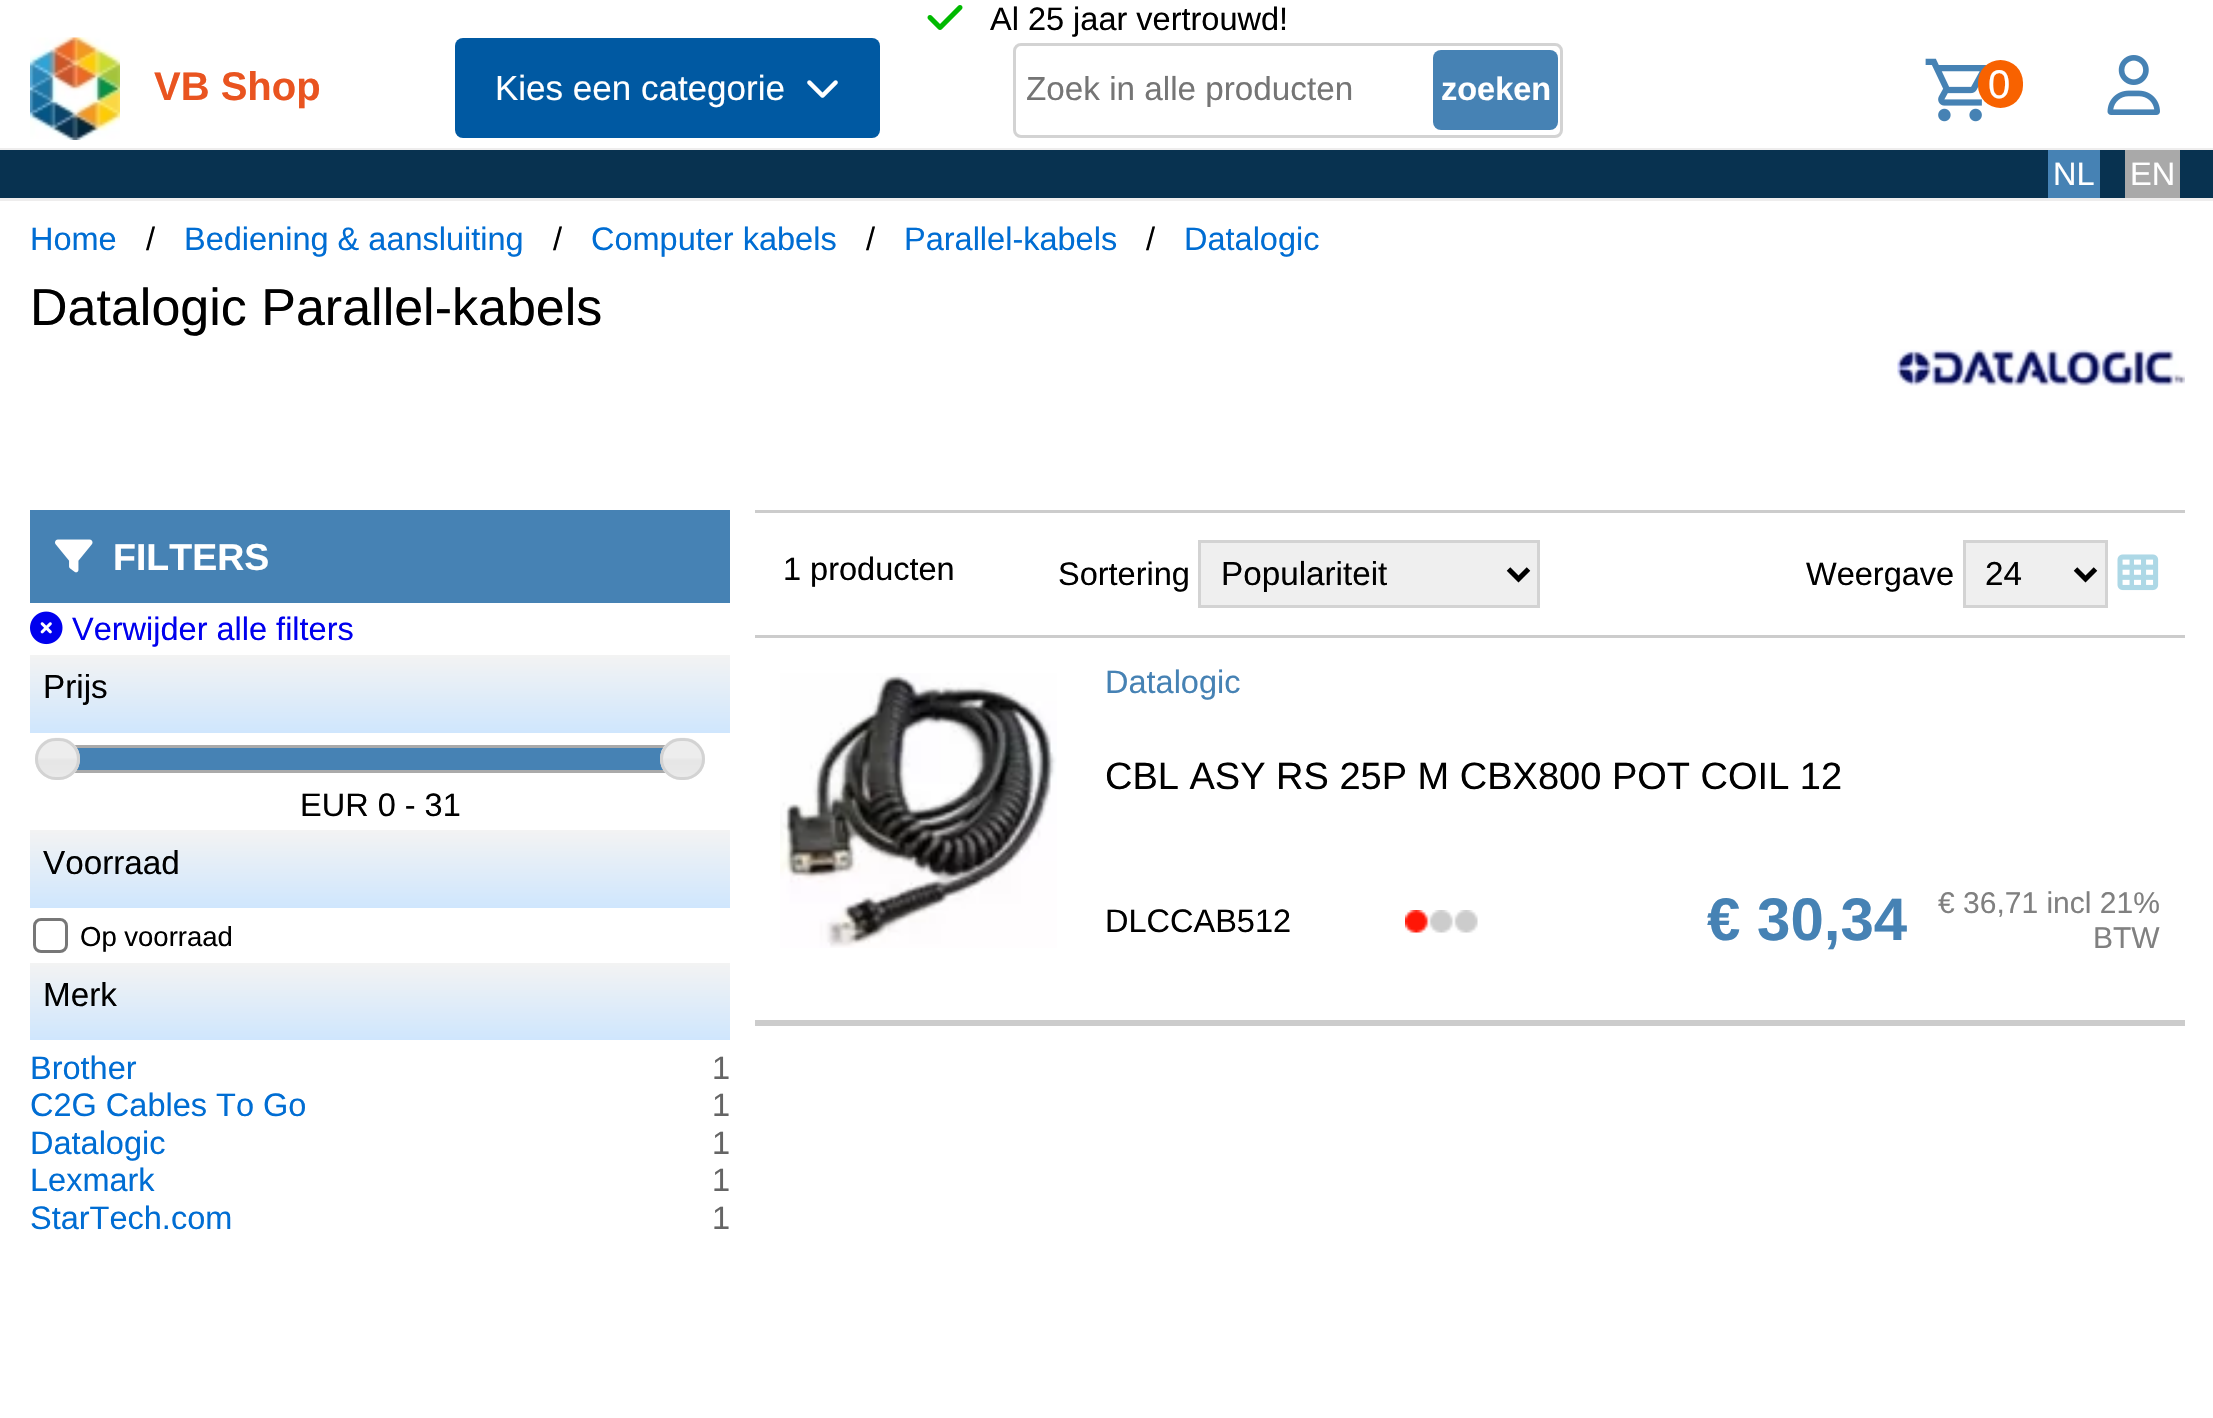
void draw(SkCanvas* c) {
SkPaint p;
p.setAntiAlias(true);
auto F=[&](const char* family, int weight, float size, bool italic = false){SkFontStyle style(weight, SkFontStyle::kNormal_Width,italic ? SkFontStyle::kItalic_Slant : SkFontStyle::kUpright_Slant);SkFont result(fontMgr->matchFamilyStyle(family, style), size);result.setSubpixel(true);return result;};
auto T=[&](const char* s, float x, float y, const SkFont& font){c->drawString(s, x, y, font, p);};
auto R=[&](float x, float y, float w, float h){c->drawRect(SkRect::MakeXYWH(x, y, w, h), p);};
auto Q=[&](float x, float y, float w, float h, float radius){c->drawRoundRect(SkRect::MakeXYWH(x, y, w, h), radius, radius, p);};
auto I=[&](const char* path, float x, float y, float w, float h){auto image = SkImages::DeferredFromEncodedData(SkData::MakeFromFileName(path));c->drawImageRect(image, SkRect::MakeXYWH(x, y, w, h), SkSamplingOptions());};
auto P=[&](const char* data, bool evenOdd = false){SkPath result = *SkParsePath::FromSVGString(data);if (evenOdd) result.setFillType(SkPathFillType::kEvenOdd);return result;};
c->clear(0xffffffff);
p.setColor(0xffeeeded);
R(0,198,2213,3);
I("1.png",927,5,36,25);
auto f1 = F("Liberation Sans",400,32.5);
p.setColor(0xff000000);
T("Al 25 jaar vertrouwd!",990,30,f1);
p.setColor(0xffeeeded);
R(0,148,2213,2);
I("2.png",30,37,90,103);
auto f2 = F("Liberation Sans",700,40);
p.setColor(0xffe95420);
T("VB Shop",154,100,f2);
p.setColor(0xff0059a2);
Q(455,38,425,100,8);
auto f3 = F("Liberation Sans",400,35);
p.setColor(0xffffffff);
T("Kies een categorie",495,100,f3);
I("3.png",807,80,31,18);
p.setStroke(true);
p.setStrokeWidth(3);
p.setColor(0xffd3d3d3);
c->drawRoundRect(SkRect::MakeXYWH(1014.5,44.5,547,92),6.5,6.5,p);
auto f4 = F("Liberation Sans",400,33.25);
p.setStroke(false);
p.setColor(0xff757575);
T("Zoek in alle producten",1026,100,f4);
p.setColor(0xff4682b4);
Q(1433,50,125,80,8);
auto f5 = F("Liberation Sans",700,32.5);
p.setColor(0xffffffff);
T("zoeken",1441,100,f5);
I("4.png",1925,58,62,64);
p.setColor(0xfff86200);
Q(1978,60,45,48,22.5);
auto f6 = F("Liberation Sans",400,40);
p.setColor(0xffffffff);
T("0",1988,98,f6);
I("5.png",2107,55,53,60);
p.setColor(0xff083250);
R(0,150,2213,48);
p.setColor(0xff4682b4);
R(2048,150,52,48);
p.setColor(0xffffffff);
T("NL",2053,185,f1);
p.setColor(0xffa9a9a9);
R(2125,150,55,48);
p.setColor(0xffffffff);
T("EN",2130,185,f1);
p.setColor(0xff006dd3);
T("Home",30,250,f1);
p.setColor(0xff000000);
T("/",146,250,f1);
p.setColor(0xff006dd3);
T("Bediening & aansluiting",184,250,f1);
p.setColor(0xff000000);
T("/",553,250,f1);
p.setColor(0xff006dd3);
T("Computer kabels",591,250,f1);
p.setColor(0xff000000);
T("/",866,250,f1);
p.setColor(0xff006dd3);
T("Parallel-kabels",904,250,f1);
p.setColor(0xff000000);
T("/",1146,250,f1);
p.setColor(0xff006dd3);
T("Datalogic",1184,250,f1);
auto f7 = F("Liberation Sans",400,52);
p.setColor(0xff000000);
T("Datalogic Parallel-kabels",30,325,f7);
I("6.png",1897,349,288,37);
p.setColor(0xff4682b4);
R(30,510,700,93);
I("7.png",55,539,38,34);
auto f8 = F("Liberation Sans",700,37.5);
p.setColor(0xffffffff);
T("FILTERS",113,570,f8);
I("8.png",30,611,33,34);
p.setColor(0xff0000ee);
T("Verwijder alle filters",72,640,f1);
{
const SkColor colors[] = {0xfff3f3f3,0xffcfe6fd};
const float stops[] = {0,1};
const SkPoint ends[] = {{380,655}, {380,733}};
p.setShader(SkGradientShader::MakeLinear(ends, colors, stops, 2, SkTileMode::kClamp));
p.setAlpha(255);
}
R(30,655,700,78);
p.setShader(nullptr);
p.setColor(0xff000000);
T("Prijs",43,698,f4);
p.setStroke(true);
p.setColor(0xffaaaaaa);
c->drawRect(SkRect::MakeXYWH(56.5,746.5,627,25),p);
p.setStroke(false);
p.setColor(0xff4682b4);
R(76,748,588,22);
I("9.png",35,737,45,43);
p.setStroke(true);
p.setColor(0xffd3d3d3);
c->drawRoundRect(SkRect::MakeXYWH(36.5,739.5,42,39),19.5,19.5,p);
I("10.png",660,737,45,43);
c->drawRoundRect(SkRect::MakeXYWH(661.5,739.5,42,39),19.5,19.5,p);
p.setStroke(false);
p.setColor(0xff000000);
T("EUR 0 - 31",300,816,f1);
{
const SkColor colors[] = {0xfff3f3f3,0xffcfe6fd};
const float stops[] = {0,1};
const SkPoint ends[] = {{380,830}, {380,908}};
p.setShader(SkGradientShader::MakeLinear(ends, colors, stops, 2, SkTileMode::kClamp));
p.setAlpha(255);
}
R(30,830,700,78);
p.setShader(nullptr);
p.setColor(0xff000000);
T("Voorraad",43,874,f4);
p.setStroke(true);
p.setColor(0xff777777);
c->drawRoundRect(SkRect::MakeXYWH(34.5,919.5,32,32),6.5,6.5,p);
auto f9 = F("Liberation Sans",400,27.5);
p.setStroke(false);
p.setColor(0xff000000);
T("Op voorraad",80,946,f9);
{
const SkColor colors[] = {0xfff3f3f3,0xffcfe6fd};
const float stops[] = {0,1};
const SkPoint ends[] = {{380,963}, {380,1040}};
p.setShader(SkGradientShader::MakeLinear(ends, colors, stops, 2, SkTileMode::kClamp));
p.setAlpha(255);
}
R(30,963,700,77);
p.setShader(nullptr);
p.setColor(0xff000000);
T("Merk",43,1006,f4);
p.setColor(0xff006dd3);
T("Brother",30,1079,f1);
p.setColor(0xff656565);
T("1",712,1079,f1);
p.setColor(0xff006dd3);
T("C2G Cables To Go",30,1116,f1);
p.setColor(0xff656565);
T("1",712,1116,f1);
p.setColor(0xff006dd3);
T("Datalogic",30,1154,f1);
p.setColor(0xff656565);
T("1",712,1154,f1);
p.setColor(0xff006dd3);
T("Lexmark",30,1191,f1);
p.setColor(0xff656565);
T("1",712,1191,f1);
p.setColor(0xff006dd3);
T("StarTech.com",30,1229,f1);
p.setColor(0xff656565);
T("1",712,1229,f1);
p.setColor(0xffcccccc);
R(755,510,1430,3);
R(755,635,1430,3);
p.setColor(0xff000000);
T("1 producten",783,580,f1);
T("Sortering",1058,585,f1);
p.setColor(0xffefefef);
c->drawRect(SkRect::MakeXYWH(1199.5,541.5,339,65),p);
p.setStroke(true);
p.setColor(0xffd3d3d3);
c->drawRect(SkRect::MakeXYWH(1199.5,541.5,339,65),p);
p.setStrokeWidth(5);
p.setColor(0xff000000);
c->drawPath(P("M1508.5 569l10 10l10-10"),p);
p.setStroke(false);
T("Populariteit",1221,585,f4);
T("Weergave",1806,585,f1);
p.setColor(0xffefefef);
c->drawRect(SkRect::MakeXYWH(1964.5,541.5,142,65),p);
p.setStroke(true);
p.setStrokeWidth(3);
p.setColor(0xffd3d3d3);
c->drawRect(SkRect::MakeXYWH(1964.5,541.5,142,65),p);
p.setStrokeWidth(5);
p.setColor(0xff000000);
c->drawPath(P("M2075.5 569l10 10l10-10"),p);
p.setStroke(false);
T("24",1985,585,f4);
I("11.png",2117,554,42,37);
I("12.png",780,673,277,275);
p.setColor(0xff4682b4);
T("Datalogic",1105,693,f1);
auto f10 = F("Liberation Sans",400,38);
p.setColor(0xff000000);
T("CBL ASY RS 25P M CBX800 POT COIL 12",1105,789,f10);
T("DLCCAB512",1105,932,f1);
I("13.png",1405,910,73,23);
auto f11 = F("Liberation Sans",700,60);
p.setColor(0xff4682b4);
T("€ 30,34",1707,940,f11);
auto f12 = F("Liberation Sans",400,30);
p.setColor(0xff808080);
T("€ 36,71 incl 21%",1938,913,f12);
T("BTW",2093,948,f12);
p.setColor(0xffcccccc);
R(755,1020,1430,6);
}
